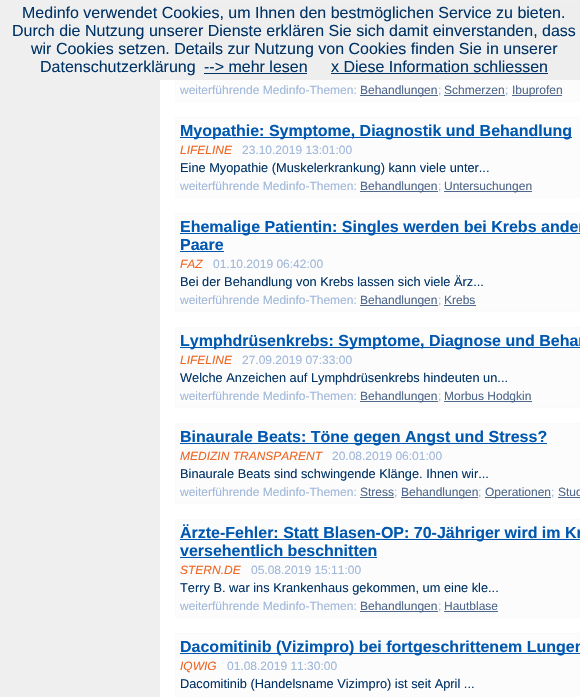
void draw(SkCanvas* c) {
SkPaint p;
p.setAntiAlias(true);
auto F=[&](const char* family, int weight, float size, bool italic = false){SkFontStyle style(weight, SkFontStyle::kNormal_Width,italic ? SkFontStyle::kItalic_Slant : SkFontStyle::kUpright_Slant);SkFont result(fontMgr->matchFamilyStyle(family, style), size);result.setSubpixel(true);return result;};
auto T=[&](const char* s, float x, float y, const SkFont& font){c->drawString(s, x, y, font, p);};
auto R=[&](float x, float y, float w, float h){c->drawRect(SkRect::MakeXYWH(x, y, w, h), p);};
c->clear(0xffefefef);
p.setColor(0xffffffff);
R(160,80,420,617);
p.setColor(0xfffcfcfc);
R(176,80,404,21);
p.setStroke(true);
p.setStrokeWidth(1);
p.setColor(0xfffafafa);
c->drawRect(SkRect::MakeXYWH(175.5,3.5,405,98),p);
p.setStroke(false);
p.setColor(0xffeeeeee);
R(175,3,405,77);
auto f1 = F("Liberation Sans",400,16);
p.setColor(0xff003366);
T("Medinfo verwendet Cookies, um Ihnen den bestmöglichen Service zu bieten.",22,18,f1);
T("Durch die Nutzung unserer Dienste erklären Sie sich damit einverstanden, dass",12,36,f1);
T("wir Cookies setzen. Details zur Nutzung von Cookies finden Sie in unserer",31,54,f1);
T("Datenschutzerklärung",40,72,f1);
T("--> mehr lesen",204,72,f1);
R(204,73,103,1);
T("x Diese Information schliessen",331,72,f1);
R(331,73,217,1);
auto f2 = F("Liberation Sans",400,12);
p.setColor(0xff9fb7da);
T("weiterführende Medinfo-Themen:",180,94,f2);
p.setColor(0xff4f678a);
R(360,95,78,1);
T("Behandlungen",360,94,f2);
p.setColor(0xff9fb7da);
T(";",438,94,f2);
p.setColor(0xff4f678a);
T("Schmerzen",444,94,f2);
R(444,95,61,1);
p.setColor(0xff9fb7da);
T(";",505,94,f2);
p.setColor(0xff4f678a);
R(512,95,50,1);
T("Ibuprofen",512,94,f2);
p.setColor(0xfffcfcfc);
c->drawRect(SkRect::MakeXYWH(175.5,117.5,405,80),p);
p.setStroke(true);
p.setColor(0xfffafafa);
c->drawRect(SkRect::MakeXYWH(175.5,117.5,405,80),p);
p.setStroke(false);
p.setColor(0xff0058b0);
R(180,137,392,1);
auto f3 = F("Liberation Sans",700,16);
T("Myopathie: Symptome, Diagnostik und Behandlung",180,136,f3);
auto f4 = F("Liberation Sans",400,12,true);
p.setColor(0xffee6622);
T("LIFELINE",180,154,f4);
p.setColor(0xff9fb7da);
T("23.10.2019 13:01:00",242,154,f2);
auto f5 = F("Liberation Sans",400,12.8);
p.setColor(0xff003366);
T("Eine Myopathie (Muskelerkrankung) kann viele unter...",180,172,f5);
p.setColor(0xff9fb7da);
T("weiterführende Medinfo-Themen:",180,190,f2);
p.setColor(0xff4f678a);
R(360,191,78,1);
T("Behandlungen",360,190,f2);
p.setColor(0xff9fb7da);
T(";",438,190,f2);
p.setColor(0xff4f678a);
R(444,191,88,1);
T("Untersuchungen",444,190,f2);
p.setColor(0xfffcfcfc);
c->drawRect(SkRect::MakeXYWH(175.5,213.5,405,98),p);
p.setStroke(true);
p.setColor(0xfffafafa);
c->drawRect(SkRect::MakeXYWH(175.5,213.5,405,98),p);
p.setStroke(false);
p.setColor(0xff0058b0);
R(180,233,400,1);
T("Ehemalige Patientin: Singles werden bei Krebs ander",180,232,f3);
T("Paare",180,250,f3);
R(180,251,44,1);
p.setColor(0xffee6622);
T("FAZ",180,268,f4);
p.setColor(0xff9fb7da);
T("01.10.2019 06:42:00",213,268,f2);
p.setColor(0xff003366);
T("Bei der Behandlung von Krebs lassen sich viele Ärz...",180,286,f5);
p.setColor(0xff9fb7da);
T("weiterführende Medinfo-Themen:",180,304,f2);
p.setColor(0xff4f678a);
R(360,305,78,1);
T("Behandlungen",360,304,f2);
p.setColor(0xff9fb7da);
T(";",438,304,f2);
p.setColor(0xff4f678a);
T("Krebs",444,304,f2);
R(444,305,32,1);
p.setColor(0xfffcfcfc);
c->drawRect(SkRect::MakeXYWH(175.5,327.5,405,80),p);
p.setStroke(true);
p.setColor(0xfffafafa);
c->drawRect(SkRect::MakeXYWH(175.5,327.5,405,80),p);
p.setStroke(false);
p.setColor(0xff0058b0);
R(180,347,400,1);
T("Lymphdrüsenkrebs: Symptome, Diagnose und Behan",180,346,f3);
p.setColor(0xffee6622);
T("LIFELINE",180,364,f4);
p.setColor(0xff9fb7da);
T("27.09.2019 07:33:00",242,364,f2);
p.setColor(0xff003366);
T("Welche Anzeichen auf Lymphdrüsenkrebs hindeuten un...",180,382,f5);
p.setColor(0xff9fb7da);
T("weiterführende Medinfo-Themen:",180,400,f2);
p.setColor(0xff4f678a);
R(360,401,78,1);
T("Behandlungen",360,400,f2);
p.setColor(0xff9fb7da);
T(";",438,400,f2);
p.setColor(0xff4f678a);
R(444,401,88,1);
T("Morbus Hodgkin",444,400,f2);
p.setColor(0xfffcfcfc);
c->drawRect(SkRect::MakeXYWH(175.5,423.5,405,80),p);
p.setStroke(true);
p.setColor(0xfffafafa);
c->drawRect(SkRect::MakeXYWH(175.5,423.5,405,80),p);
p.setStroke(false);
p.setColor(0xff0058b0);
R(180,443,367,1);
T("Binaurale Beats: Töne gegen Angst und Stress?",180,442,f3);
p.setColor(0xffee6622);
T("MEDIZIN TRANSPARENT",180,460,f4);
p.setColor(0xff9fb7da);
T("20.08.2019 06:01:00",332,460,f2);
p.setColor(0xff003366);
T("Binaurale Beats sind schwingende Klänge. Ihnen wir...",180,478,f5);
p.setColor(0xff9fb7da);
T("weiterführende Medinfo-Themen:",180,496,f2);
p.setColor(0xff4f678a);
T("Stress",360,496,f2);
R(360,497,34,1);
p.setColor(0xff9fb7da);
T(";",394,496,f2);
p.setColor(0xff4f678a);
R(401,497,77,1);
T("Behandlungen",401,496,f2);
p.setColor(0xff9fb7da);
T(";",478,496,f2);
p.setColor(0xff4f678a);
R(485,497,66,1);
T("Operationen",485,496,f2);
p.setColor(0xff9fb7da);
T(";",551,496,f2);
p.setColor(0xff4f678a);
T("Stud",558,496,f2);
R(558,497,22,1);
p.setColor(0xfffcfcfc);
c->drawRect(SkRect::MakeXYWH(175.5,519.5,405,98),p);
p.setStroke(true);
p.setColor(0xfffafafa);
c->drawRect(SkRect::MakeXYWH(175.5,519.5,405,98),p);
p.setStroke(false);
p.setColor(0xff0058b0);
R(180,539,400,1);
T("Ärzte-Fehler: Statt Blasen-OP: 70-Jähriger wird im Kr",180,538,f3);
T("versehentlich beschnitten",180,556,f3);
R(180,557,197,1);
p.setColor(0xffee6622);
T("STERN.DE",180,574,f4);
p.setColor(0xff9fb7da);
T("05.08.2019 15:11:00",251,574,f2);
p.setColor(0xff003366);
T("Terry B. war ins Krankenhaus gekommen, um eine kle...",180,592,f5);
p.setColor(0xff9fb7da);
T("weiterführende Medinfo-Themen:",180,610,f2);
p.setColor(0xff4f678a);
R(360,611,78,1);
T("Behandlungen",360,610,f2);
p.setColor(0xff9fb7da);
T(";",438,610,f2);
p.setColor(0xff4f678a);
T("Hautblase",444,610,f2);
R(444,611,54,1);
p.setColor(0xfffcfcfc);
c->drawRect(SkRect::MakeXYWH(175.5,633.5,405,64),p);
p.setStroke(true);
p.setColor(0xfffafafa);
c->drawRect(SkRect::MakeXYWH(175.5,633.5,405,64),p);
p.setStroke(false);
p.setColor(0xff0058b0);
R(180,653,400,1);
T("Dacomitinib (Vizimpro) bei fortgeschrittenem Lungen",180,652,f3);
p.setColor(0xffee6622);
T("IQWIG",180,670,f4);
p.setColor(0xff9fb7da);
T("01.08.2019 11:30:00",227,670,f2);
p.setColor(0xff003366);
T("Dacomitinib (Handelsname Vizimpro) ist seit April ...",180,688,f5);
}
